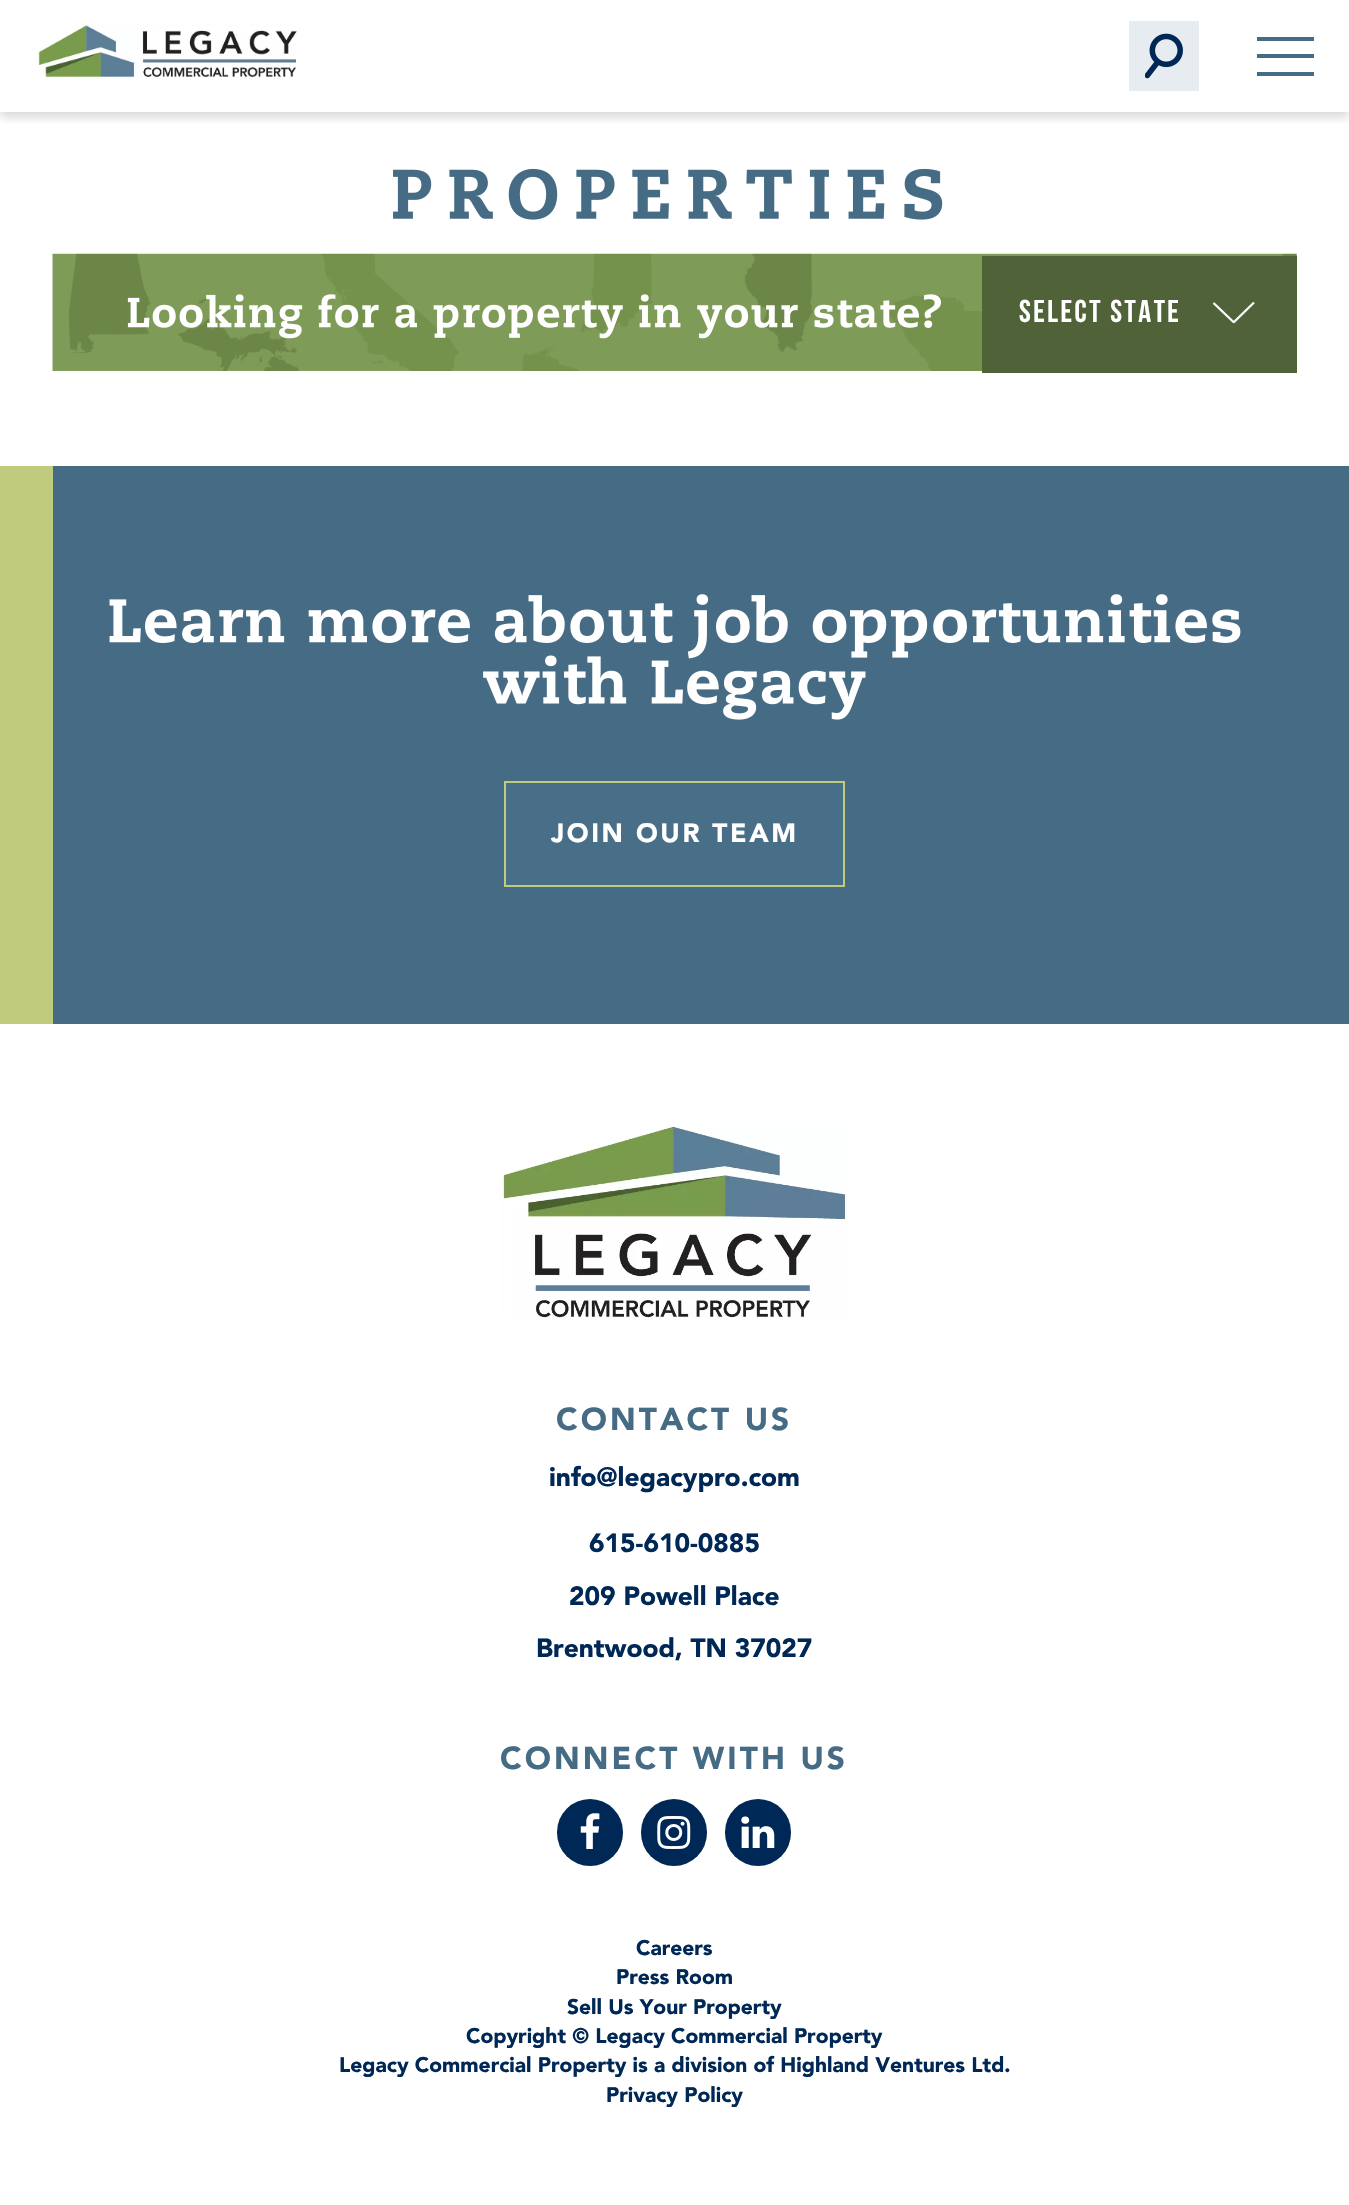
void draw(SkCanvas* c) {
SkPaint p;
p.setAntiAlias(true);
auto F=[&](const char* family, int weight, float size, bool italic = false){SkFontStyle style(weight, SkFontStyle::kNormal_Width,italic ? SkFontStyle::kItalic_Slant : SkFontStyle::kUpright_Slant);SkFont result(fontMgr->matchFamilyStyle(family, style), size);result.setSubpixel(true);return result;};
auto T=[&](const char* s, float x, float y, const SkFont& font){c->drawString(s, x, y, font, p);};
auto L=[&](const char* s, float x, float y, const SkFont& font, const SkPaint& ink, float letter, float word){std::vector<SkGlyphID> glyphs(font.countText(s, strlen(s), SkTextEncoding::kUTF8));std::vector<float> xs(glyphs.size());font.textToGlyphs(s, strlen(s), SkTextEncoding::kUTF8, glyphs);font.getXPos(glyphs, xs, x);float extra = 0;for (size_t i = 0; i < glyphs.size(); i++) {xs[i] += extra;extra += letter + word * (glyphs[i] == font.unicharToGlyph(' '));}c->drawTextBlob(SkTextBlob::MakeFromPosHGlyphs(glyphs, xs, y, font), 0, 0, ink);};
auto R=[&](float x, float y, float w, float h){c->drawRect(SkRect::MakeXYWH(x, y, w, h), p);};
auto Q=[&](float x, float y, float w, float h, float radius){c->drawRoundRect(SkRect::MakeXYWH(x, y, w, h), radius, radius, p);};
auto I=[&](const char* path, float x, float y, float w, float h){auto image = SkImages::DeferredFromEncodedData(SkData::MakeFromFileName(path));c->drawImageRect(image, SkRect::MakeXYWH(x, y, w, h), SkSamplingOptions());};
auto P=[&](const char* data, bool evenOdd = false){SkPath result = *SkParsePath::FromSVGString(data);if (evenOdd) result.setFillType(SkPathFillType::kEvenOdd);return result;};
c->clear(0xffffffff);
c->save();
c->clipRect(SkRect::MakeXYWH(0,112,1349,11));
p.setColor(0x29000000);
p.setMaskFilter(SkMaskFilter::MakeBlur(kNormal_SkBlurStyle, 5));
c->drawRect(SkRect::MakeXYWH(0,5,1349,112),p);
p.setMaskFilter(nullptr);
c->restore();
I("1.png",38,24,259,54);
p.setColor(0xffe6ecef);
R(1129,21,70,70);
I("2.png",1145,33,38,46);
p.setColor(0xff466b84);
R(1257,54,57,4);
R(1257,37,57,4);
R(1257,72,57,4);
I("3.png",393,168,550,52);
I("4.png",52,253,1245,118);
I("5.png",127,294,814,45);
p.setColor(0xff506238);
R(982,256,315,117);
auto f1 = F("Bebas Neue",400,31.5);
p.setColor(0xffffffff);
L("SELECT STATE",1019,322,f1,p,2.5,0);
p.setStroke(true);
p.setStrokeWidth(2.3);
c->drawPath(P("M1213.5 303l20.5 19.5zm20 19.5l20.5-20z"),p);
p.setStroke(false);
p.setColor(0xff466b84);
R(53,466,1296,558);
p.setColor(0xffc1cb7e);
R(0,466,53,558);
I("6.png",109,594,1132,65);
I("7.png",483,655,383,65);
p.setColor(0xff496e87);
c->drawRect(SkRect::MakeXYWH(505,782,339,104),p);
p.setStroke(true);
p.setStrokeWidth(2);
p.setColor(0xffc1cb7e);
c->drawRect(SkRect::MakeXYWH(505,782,339,104),p);
auto f2 = F("Avenir",900,26.25);
p.setStroke(false);
p.setColor(0xffffffff);
L("JOIN OUR TEAM",551,842,f2,p,2.6,0);
I("8.png",501,1125,346,193);
auto f3 = F("Avenir",900,31.5);
p.setColor(0xff466b84);
L("CONTACT US",556,1430,f3,p,3.1,0);
p.setColor(0xff002856);
T("info@legacypro.com",549,1486,f2);
T("615-610-0885",589,1552,f2);
T("209 Powell Place",569,1605,f2);
T("Brentwood, TN 37027",536,1657,f2);
p.setColor(0xff466b84);
L("CONNECT WITH US",500,1769,f3,p,3.1,0);
p.setColor(0xff002856);
Q(557,1799,66,67,33);
I("9.png",580,1813,20,36);
Q(641,1799,66,67,33);
I("10.png",657,1816,34,33);
Q(725,1799,66,67,33);
I("11.png",741,1816,34,32);
auto f4 = F("Avenir",900,21);
T("Careers",636,1955,f4);
T("Press Room",616,1984,f4);
T("Sell Us Your Property",567,2014,f4);
T("Copyright © Legacy Commercial Property",466,2043,f4);
T("Legacy Commercial Property is a division of Highland Ventures Ltd.",339,2072,f4);
T("Privacy Policy",606,2102,f4);
}
